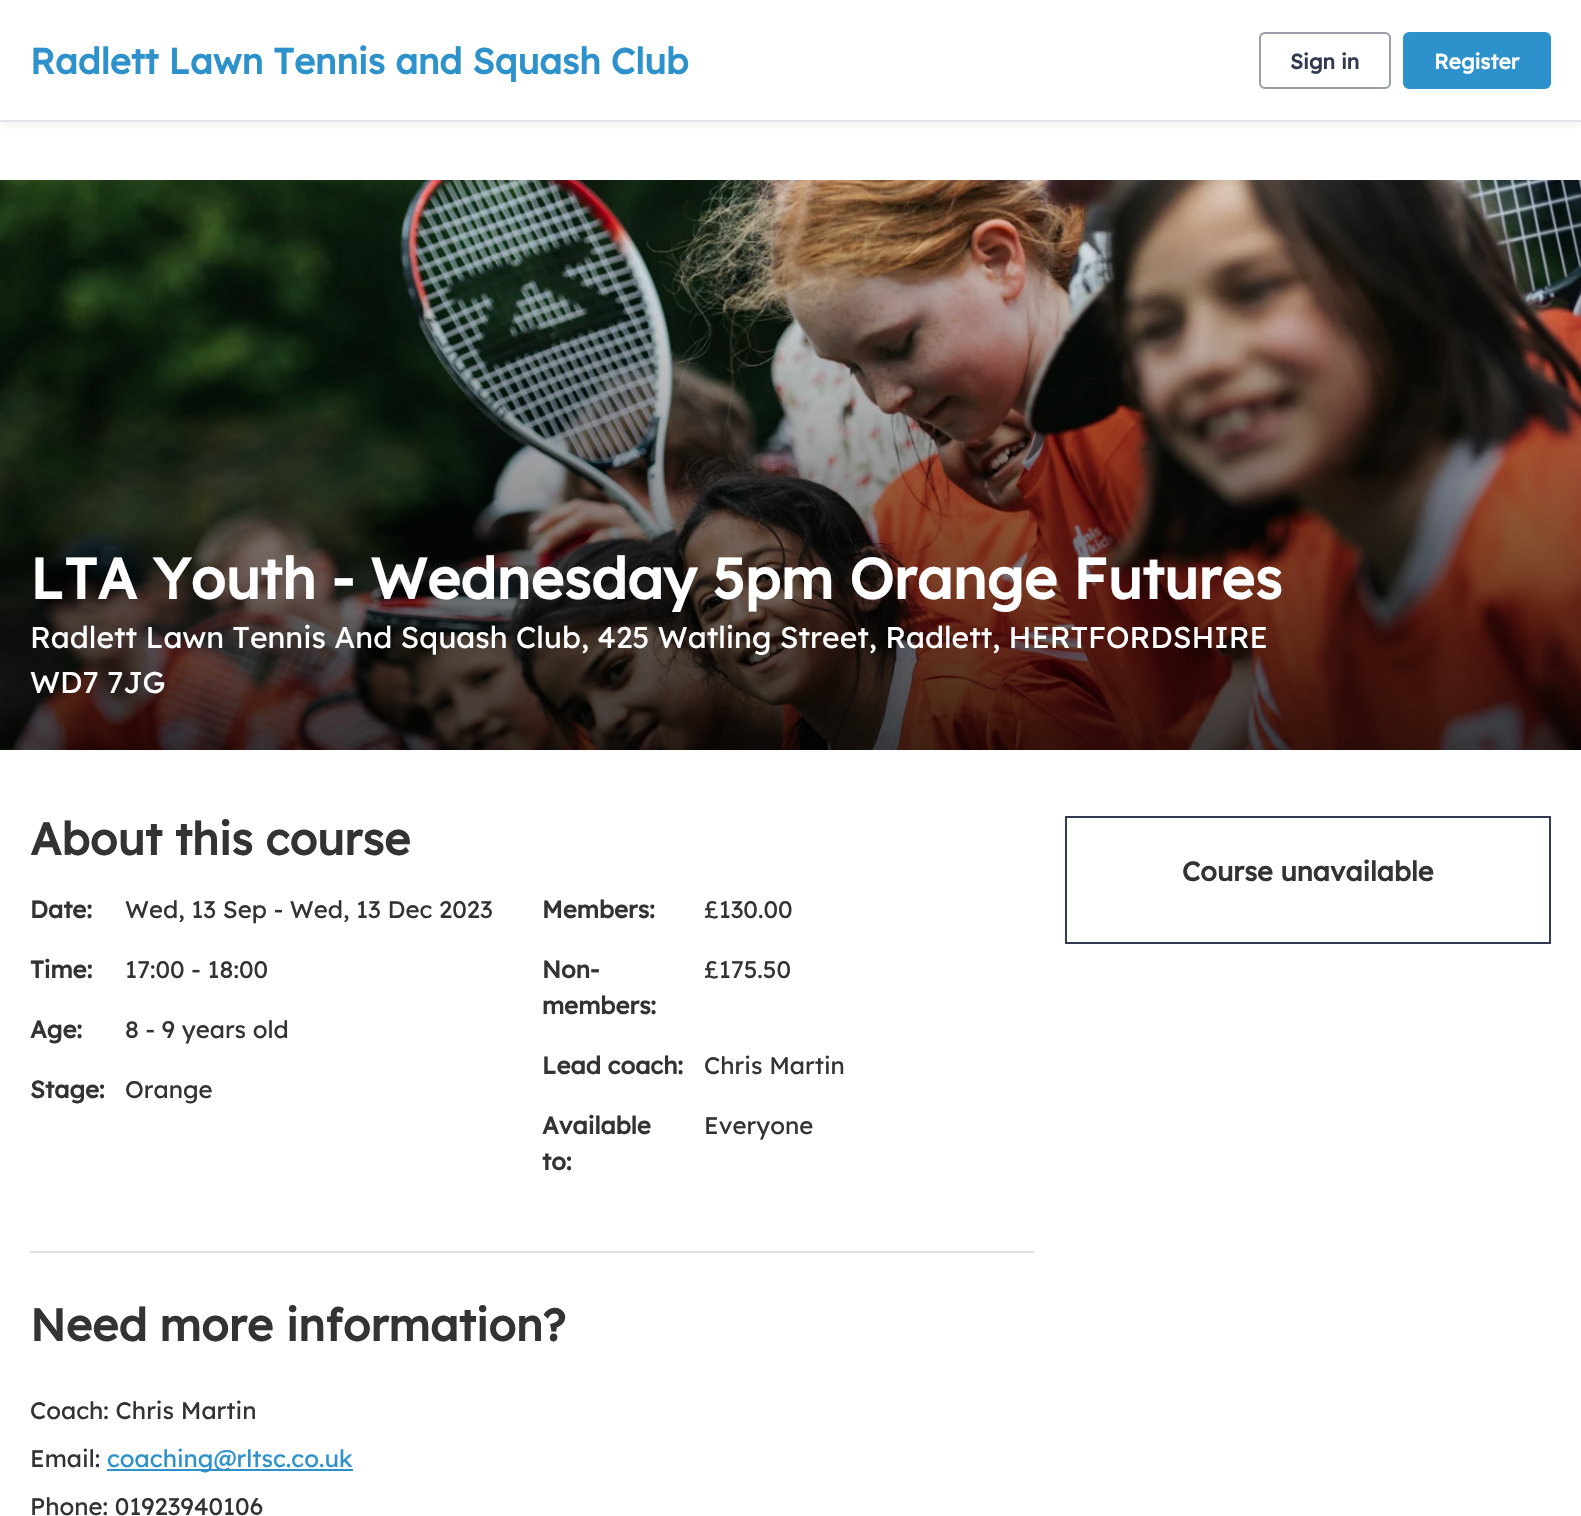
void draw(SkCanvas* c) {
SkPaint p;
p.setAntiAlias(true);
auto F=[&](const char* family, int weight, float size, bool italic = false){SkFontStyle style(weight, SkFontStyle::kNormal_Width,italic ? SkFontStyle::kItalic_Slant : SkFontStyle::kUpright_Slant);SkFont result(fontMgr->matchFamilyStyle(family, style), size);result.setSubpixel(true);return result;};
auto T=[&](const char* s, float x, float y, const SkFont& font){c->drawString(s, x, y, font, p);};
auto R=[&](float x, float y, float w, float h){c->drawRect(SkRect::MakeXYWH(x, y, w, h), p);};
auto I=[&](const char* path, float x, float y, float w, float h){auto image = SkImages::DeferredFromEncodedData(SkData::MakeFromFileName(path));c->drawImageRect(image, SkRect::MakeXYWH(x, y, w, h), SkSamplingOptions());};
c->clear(0xffffffff);
p.setColor(0x0f141d37);
p.setMaskFilter(SkMaskFilter::MakeBlur(kNormal_SkBlurStyle, 4.5));
c->drawRect(SkRect::MakeXYWH(0,3,1581,122),p);
p.setMaskFilter(nullptr);
p.setColor(0xffffffff);
R(0,0,1581,120);
auto f1 = F("Lexend",700,36);
p.setColor(0xff2d92cc);
T("Radlett Lawn Tennis and Squash Club",30,74,f1);
p.setStroke(true);
p.setStrokeWidth(2);
p.setColor(0xff989ca7);
c->drawRoundRect(SkRect::MakeXYWH(1260,33,130,55),5,5,p);
auto f2 = F("Lexend",700,21);
p.setStroke(false);
p.setColor(0xff323950);
T("Sign in",1290,69,f2);
p.setColor(0xff2d92cc);
c->drawRoundRect(SkRect::MakeXYWH(1404,33,146,55),5,5,p);
p.setStroke(true);
c->drawRoundRect(SkRect::MakeXYWH(1404,33,146,55),5,5,p);
p.setStroke(false);
p.setColor(0xffffffff);
T("Register",1434,69,f2);
p.setColor(0xffe3e5eb);
R(0,120,1581,2);
I("1.png",0,180,1581,570);
auto f3 = F("Lexend",700,57);
p.setColor(0xffffffff);
T("LTA Youth - Wednesday 5pm Orange Futures",30,599,f3);
auto f4 = F("Lexend",400,30);
T("Radlett Lawn Tennis And Squash Club, 425 Watling Street, Radlett, HERTFORDSHIRE",30,648,f4);
T("WD7 7JG",30,693,f4);
auto f5 = F("Lexend",700,45);
p.setColor(0xff333333);
T("About this course",30,855,f5);
auto f6 = F("Lexend",700,24);
T("Date:",30,918,f6);
auto f7 = F("Lexend",400,24);
T("Wed, 13 Sep - Wed, 13 Dec 2023",125,918,f7);
T("Time:",30,978,f6);
T("17:00 - 18:00",125,978,f7);
T("Age:",30,1038,f6);
T("8 - 9 years old",125,1038,f7);
T("Stage:",30,1098,f6);
T("Orange",125,1098,f7);
T("Members:",542,918,f6);
T("£130.00",704,918,f7);
T("Non-",542,978,f6);
T("members:",542,1014,f6);
T("£175.50",704,978,f7);
T("Lead coach:",542,1074,f6);
T("Chris Martin",704,1074,f7);
T("Available",542,1134,f6);
T("to:",542,1170,f6);
T("Everyone",704,1134,f7);
p.setColor(0xffe4e4e4);
R(30,1251,1004,2);
p.setColor(0xff333333);
T("Need more information?",30,1341,f5);
T("Coach: Chris Martin",30,1419,f7);
T("Email:",30,1467,f7);
p.setColor(0xff2d92cc);
R(107,1469,246,2);
T("coaching@rltsc.co.uk",107,1467,f7);
p.setColor(0xff333333);
T("Phone: 01923940106",30,1515,f7);
p.setStroke(true);
p.setColor(0xff323950);
c->drawRect(SkRect::MakeXYWH(1066,817,484,126),p);
auto f8 = F("Lexend",700,27);
p.setStroke(false);
p.setColor(0xff333333);
T("Course unavailable",1182,881,f8);
}
